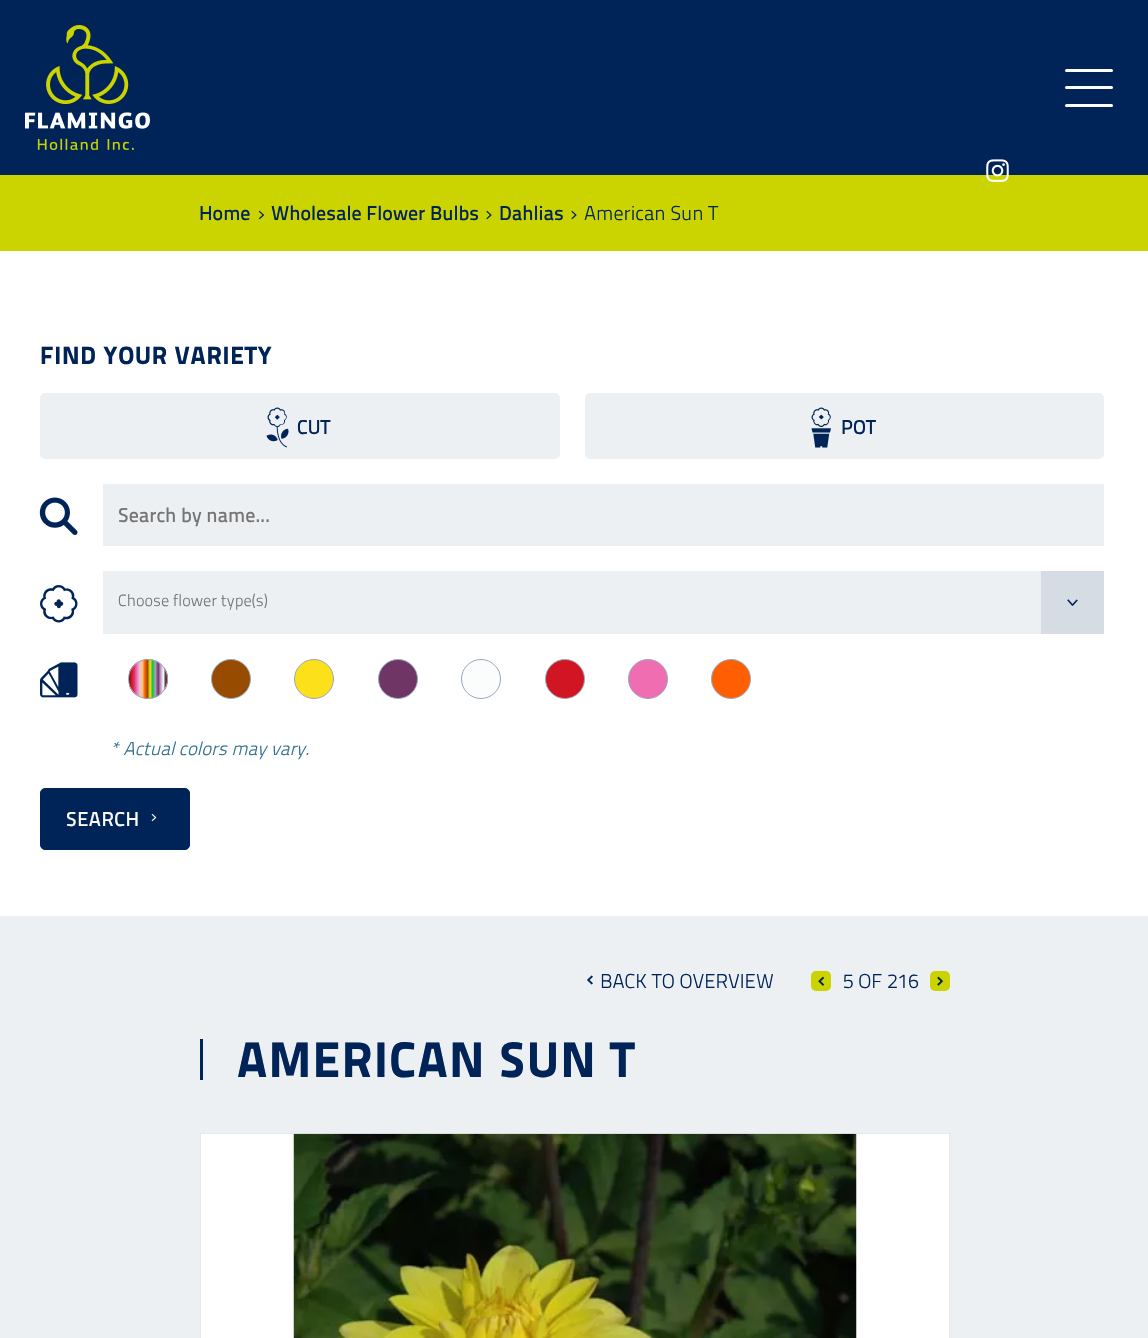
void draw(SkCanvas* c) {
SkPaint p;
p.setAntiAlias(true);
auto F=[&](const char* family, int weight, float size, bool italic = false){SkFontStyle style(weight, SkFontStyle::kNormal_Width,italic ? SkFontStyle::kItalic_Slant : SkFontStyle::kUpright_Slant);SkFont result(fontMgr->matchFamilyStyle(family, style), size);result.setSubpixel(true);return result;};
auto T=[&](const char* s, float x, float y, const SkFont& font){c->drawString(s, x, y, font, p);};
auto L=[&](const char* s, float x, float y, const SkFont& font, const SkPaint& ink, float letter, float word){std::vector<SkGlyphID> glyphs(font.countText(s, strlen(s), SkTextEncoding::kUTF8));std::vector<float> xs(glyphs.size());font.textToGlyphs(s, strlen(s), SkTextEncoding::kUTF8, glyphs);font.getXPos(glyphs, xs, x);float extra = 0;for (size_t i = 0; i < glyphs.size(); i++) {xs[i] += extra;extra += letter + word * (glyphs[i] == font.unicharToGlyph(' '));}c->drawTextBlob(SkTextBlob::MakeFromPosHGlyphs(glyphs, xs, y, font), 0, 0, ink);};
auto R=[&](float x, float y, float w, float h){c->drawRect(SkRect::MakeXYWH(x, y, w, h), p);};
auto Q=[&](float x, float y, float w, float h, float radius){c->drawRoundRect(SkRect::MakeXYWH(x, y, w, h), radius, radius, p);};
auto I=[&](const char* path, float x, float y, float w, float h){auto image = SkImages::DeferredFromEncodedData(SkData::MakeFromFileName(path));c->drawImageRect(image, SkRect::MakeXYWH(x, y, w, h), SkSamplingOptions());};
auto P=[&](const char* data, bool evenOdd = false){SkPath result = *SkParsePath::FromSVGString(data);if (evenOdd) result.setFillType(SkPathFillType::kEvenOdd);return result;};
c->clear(0xffcbd401);
p.setColor(0xff002458);
R(0,0,1148,175);
I("1.png",25,25,125,125);
p.setColor(0xffffffff);
Q(1065,69,48,3,1.5);
Q(1065,86,48,3,1.5);
Q(1065,104,48,3,1.5);
I("2.png",986,159,23,23);
auto f1 = F("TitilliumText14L",600,20);
p.setColor(0xff002458);
T("Home",199,220,f1);
I("3.png",258,210,6,10);
T("Wholesale Flower Bulbs",271,220,f1);
I("4.png",486,210,6,10);
T("Dahlias",499,220,f1);
I("4.png",571,210,6,10);
auto f2 = F("TitilliumText14L",300,20);
T("American Sun T",584,220,f2);
p.setColor(0xffffffff);
R(0,251,1148,665);
auto f3 = F("TitilliumText14L",900,25);
p.setColor(0xff002458);
L("FIND YOUR VARIETY",40,364,f3,p,.75,0);
p.setColor(0xffedf0f3);
Q(40,393,520,66,5);
I("5.png",266,407,23,41);
p.setColor(0xff002458);
T("CUT",297,434,f1);
p.setColor(0xffedf0f3);
Q(585,393,519,66,5);
I("6.png",811,407,20,41);
p.setColor(0xff002458);
T("POT",841,434,f1);
I("7.png",39,497,39,38);
p.setColor(0xffedf0f3);
R(103,484,1001,62);
p.setColor(0xff757575);
T("Search by name...",118,522,f1);
I("8.png",40,585,38,38);
p.setColor(0xffedf0f3);
R(103,571,938,63);
auto f4 = F("TitilliumText14L",300,16.25);
p.setColor(0xff757575);
T("Choose flower type(s)",118,606,f4);
p.setColor(0xffd5dce4);
R(1041,571,63,63);
I("9.png",1067,599,11,7);
I("10.png",40,662,38,36);
c->save();
c->clipPath(P("M148 659c11 0 20 9 20 20c0 11-9 20-20 20c-11 0-20-9-20-20c0-11 9-20 20-20z"),true);
{
const SkColor colors[] = {0xff61140d,0xffd21523,0xffde3163,0xffef6db0,0xffe8bddc,0xfff9cc7b,0xffff5f00,0xff964b00,0xfffbe01a,0xff00cc33,0xffb29ecc,0xff6f3565,0xffc8a2c8,0xfffbfdfd,0xff24191d};
const float stops[] = {0,.07,.14,.21,.29,.36,.43,.5,.57,.64,.71,.79,.86,.93,1};
const SkPoint ends[] = {{129,679}, {166,679}};
p.setShader(SkGradientShader::MakeLinear(ends, colors, stops, 15, SkTileMode::kClamp));
p.setAlpha(255);
}
R(129,659,37,40);
{
const SkColor colors[] = {0xff61140d,0xffd21523,0xffde3163,0xffef6db0,0xffe8bddc,0xfff9cc7b,0xffff5f00,0xff964b00,0xfffbe01a,0xff00cc33,0xffb29ecc,0xff6f3565,0xffc8a2c8,0xfffbfdfd,0xff24191d};
const float stops[] = {0,.07,.14,.21,.29,.36,.43,.5,.57,.64,.71,.79,.86,.93,1};
const SkPoint ends[] = {{166,679}, {204,679}};
p.setShader(SkGradientShader::MakeLinear(ends, colors, stops, 15, SkTileMode::kClamp));
p.setAlpha(255);
}
R(166,670,2,18);
c->restore();
p.setStroke(true);
p.setStrokeWidth(1);
p.setShader(nullptr);
p.setColor(0xff99a7bc);
c->drawCircle(148,679,19.5,p);
p.setStroke(false);
p.setColor(0xff964b00);
c->drawCircle(231,679,19.5,p);
p.setStroke(true);
p.setColor(0xff99a7bc);
c->drawCircle(231,679,19.5,p);
p.setStroke(false);
p.setColor(0xfffbe01a);
c->drawCircle(314,679,19.5,p);
p.setStroke(true);
p.setColor(0xff99a7bc);
c->drawCircle(314,679,19.5,p);
p.setStroke(false);
p.setColor(0xff6f3565);
c->drawCircle(398,679,19.5,p);
p.setStroke(true);
p.setColor(0xff99a7bc);
c->drawCircle(398,679,19.5,p);
p.setStroke(false);
p.setColor(0xfffbfdfd);
c->drawCircle(481,679,19.5,p);
p.setStroke(true);
p.setColor(0xff99a7bc);
c->drawCircle(481,679,19.5,p);
p.setStroke(false);
p.setColor(0xffd21523);
c->drawCircle(565,679,19.5,p);
p.setStroke(true);
p.setColor(0xff99a7bc);
c->drawCircle(565,679,19.5,p);
p.setStroke(false);
p.setColor(0xffef6db0);
c->drawCircle(648,679,19.5,p);
p.setStroke(true);
p.setColor(0xff99a7bc);
c->drawCircle(648,679,19.5,p);
p.setStroke(false);
p.setColor(0xffff5f00);
c->drawCircle(731,679,19.5,p);
p.setStroke(true);
p.setColor(0xff99a7bc);
c->drawCircle(731,679,19.5,p);
auto f5 = F("TitilliumText14L",300,18.75,true);
p.setStroke(false);
p.setColor(0xff31708f);
T("* Actual colors may vary.",109,755,f5);
p.setColor(0xff002458);
c->drawRoundRect(SkRect::MakeXYWH(40.5,788.5,149,61),4.5,4.5,p);
p.setStroke(true);
c->drawRoundRect(SkRect::MakeXYWH(40.5,788.5,149,61),4.5,4.5,p);
p.setStroke(false);
p.setColor(0xffffffff);
L("SEARCH",66,826,f1,p,.5,0);
I("11.png",151,813,6,9);
p.setColor(0xffedf0f3);
R(0,916,1148,422);
I("12.png",587,975,6,10);
p.setColor(0xff002458);
T("BACK TO OVERVIEW",600,988,f2);
p.setColor(0xffcbd401);
Q(811,971,20,20,5);
I("13.png",818,976,7,10);
p.setColor(0xff002458);
T("5 OF 216",843,988,f2);
p.setColor(0xffcbd401);
Q(930,971,20,20,5);
I("14.png",937,976,6,10);
p.setColor(0xff002458);
R(200,1039,3,41);
auto f6 = F("TitilliumText14L",900,50);
L("AMERICAN SUN T",237,1077,f6,p,1.5,0);
p.setColor(0xffffffff);
c->drawRect(SkRect::MakeXYWH(200.5,1133.5,749,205),p);
p.setStroke(true);
p.setColor(0xffe6e9ee);
c->drawRect(SkRect::MakeXYWH(200.5,1133.5,749,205),p);
I("15.png",293,1133,564,205);
}
